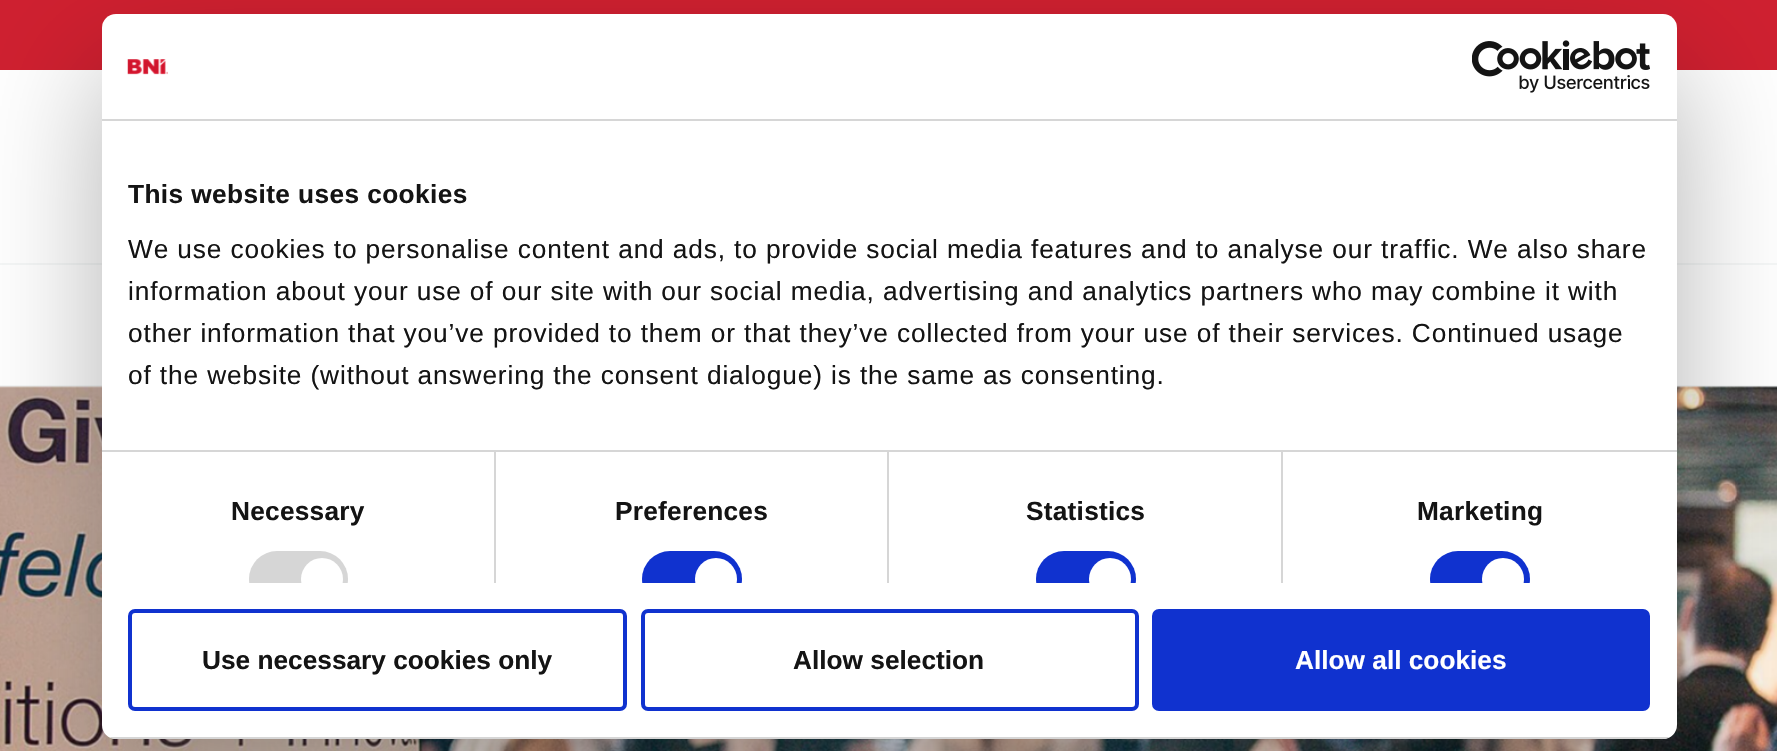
void draw(SkCanvas* c) {
SkPaint p;
p.setAntiAlias(true);
auto F=[&](const char* family, int weight, float size, bool italic = false){SkFontStyle style(weight, SkFontStyle::kNormal_Width,italic ? SkFontStyle::kItalic_Slant : SkFontStyle::kUpright_Slant);SkFont result(fontMgr->matchFamilyStyle(family, style), size);result.setSubpixel(true);return result;};
auto T=[&](const char* s, float x, float y, const SkFont& font){c->drawString(s, x, y, font, p);};
auto L=[&](const char* s, float x, float y, const SkFont& font, const SkPaint& ink, float letter, float word){std::vector<SkGlyphID> glyphs(font.countText(s, strlen(s), SkTextEncoding::kUTF8));std::vector<float> xs(glyphs.size());font.textToGlyphs(s, strlen(s), SkTextEncoding::kUTF8, glyphs);font.getXPos(glyphs, xs, x);float extra = 0;for (size_t i = 0; i < glyphs.size(); i++) {xs[i] += extra;extra += letter + word * (glyphs[i] == font.unicharToGlyph(' '));}c->drawTextBlob(SkTextBlob::MakeFromPosHGlyphs(glyphs, xs, y, font), 0, 0, ink);};
auto R=[&](float x, float y, float w, float h){c->drawRect(SkRect::MakeXYWH(x, y, w, h), p);};
auto Q=[&](float x, float y, float w, float h, float radius){c->drawRoundRect(SkRect::MakeXYWH(x, y, w, h), radius, radius, p);};
auto I=[&](const char* path, float x, float y, float w, float h){auto image = SkImages::DeferredFromEncodedData(SkData::MakeFromFileName(path));c->drawImageRect(image, SkRect::MakeXYWH(x, y, w, h), SkSamplingOptions());};
auto P=[&](const char* data, bool evenOdd = false){SkPath result = *SkParsePath::FromSVGString(data);if (evenOdd) result.setFillType(SkPathFillType::kEvenOdd);return result;};
c->clear(0xffffffff);
p.setColor(0xffcf2030);
R(0,0,1777,70);
p.setColor(0xfff5f7f7);
R(0,385,1777,2);
R(0,263,1777,2);
I("1.png",0,386,1777,365);
p.setColor(0x4d000000);
p.setMaskFilter(SkMaskFilter::MakeBlur(kNormal_SkBlurStyle, 59.5));
c->drawRoundRect(SkRect::MakeXYWH(102,70,1575,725),14,14,p);
p.setMaskFilter(nullptr);
p.setColor(0xffffffff);
Q(102,14,1575,725,14);
p.setColor(0xffd6d6d6);
R(102,119,1575,2);
I("2.png",127,59,41,16);
I("3.png",1472,40,178,53);
R(102,450,1575,2);
auto f1 = F("Liberation Sans",700,26.25);
p.setColor(0xff141414);
L("This website uses cookies",128,203,f1,p,.4,0);
auto f2 = F("Liberation Sans",400,26.25);
L("We use cookies to personalise content and ads, to provide social media features and to analyse our traffic. We also share",128,258,f2,p,.88,0);
L("information about your use of our site with our social media, advertising and analytics partners who may combine it with",128,300,f2,p,.88,0);
L("other information that you’ve provided to them or that they’ve collected from your use of their services. Continued usage",128,342,f2,p,.88,0);
L("of the website (without answering the consent dialogue) is the same as consenting.",128,384,f2,p,.88,0);
p.setColor(0xffd6d6d6);
R(494,452,2,131);
p.setColor(0xff141414);
L("Necessary",231,520,f1,p,.25,0);
c->save();
c->clipRect(SkRect::MakeXYWH(102,121,1575,462));
p.setColor(0xffd6d6d6);
Q(249,551,99,56,28);
p.setColor(0xffffffff);
c->drawCircle(322,579,21,p);
c->restore();
p.setColor(0xffd6d6d6);
R(887,452,2,131);
p.setColor(0xff141414);
L("Preferences",615,520,f1,p,.25,0);
c->save();
c->clipRect(SkRect::MakeXYWH(102,121,1575,462));
p.setColor(0xff1032cf);
Q(642,551,100,56,28);
p.setColor(0xffffffff);
c->drawCircle(716,579,21,p);
c->restore();
p.setColor(0xffd6d6d6);
R(1281,452,2,131);
p.setColor(0xff141414);
L("Statistics",1026,520,f1,p,.25,0);
c->save();
c->clipRect(SkRect::MakeXYWH(102,121,1575,462));
p.setColor(0xff1032cf);
Q(1036,551,100,56,28);
p.setColor(0xffffffff);
c->drawCircle(1110,579,21,p);
c->restore();
p.setColor(0xff141414);
L("Marketing",1417,520,f1,p,.25,0);
c->save();
c->clipRect(SkRect::MakeXYWH(102,121,1575,462));
p.setColor(0xff1032cf);
Q(1430,551,100,56,28);
p.setColor(0xffffffff);
c->drawCircle(1503,579,21,p);
c->restore();
c->save();
c->clipPath(P("M116 14h1547c7.5 0 14 6.5 14 14v697c0 7.5-6.5 14-14 14h-1547c-7.5 0-14-6.5-14-14v-697c0-7.5 6.5-14 14-14z"),true);
p.setColor(0xffd6d6d6);
R(102,737,1575,2);
c->restore();
p.setStroke(true);
p.setStrokeWidth(4);
p.setColor(0xff1032cf);
c->drawRoundRect(SkRect::MakeXYWH(130,611,495,98),5,5,p);
p.setStroke(false);
p.setColor(0xff141414);
T("Use necessary cookies only",202,669,f1);
p.setStroke(true);
p.setColor(0xff1032cf);
c->drawRoundRect(SkRect::MakeXYWH(643,611,494,98),5,5,p);
p.setStroke(false);
p.setColor(0xff141414);
T("Allow selection",793,669,f1);
p.setColor(0xff1032cf);
c->drawRoundRect(SkRect::MakeXYWH(1154,611,494,98),5,5,p);
p.setStroke(true);
c->drawRoundRect(SkRect::MakeXYWH(1154,611,494,98),5,5,p);
p.setStroke(false);
p.setColor(0xffffffff);
T("Allow all cookies",1295,669,f1);
}
